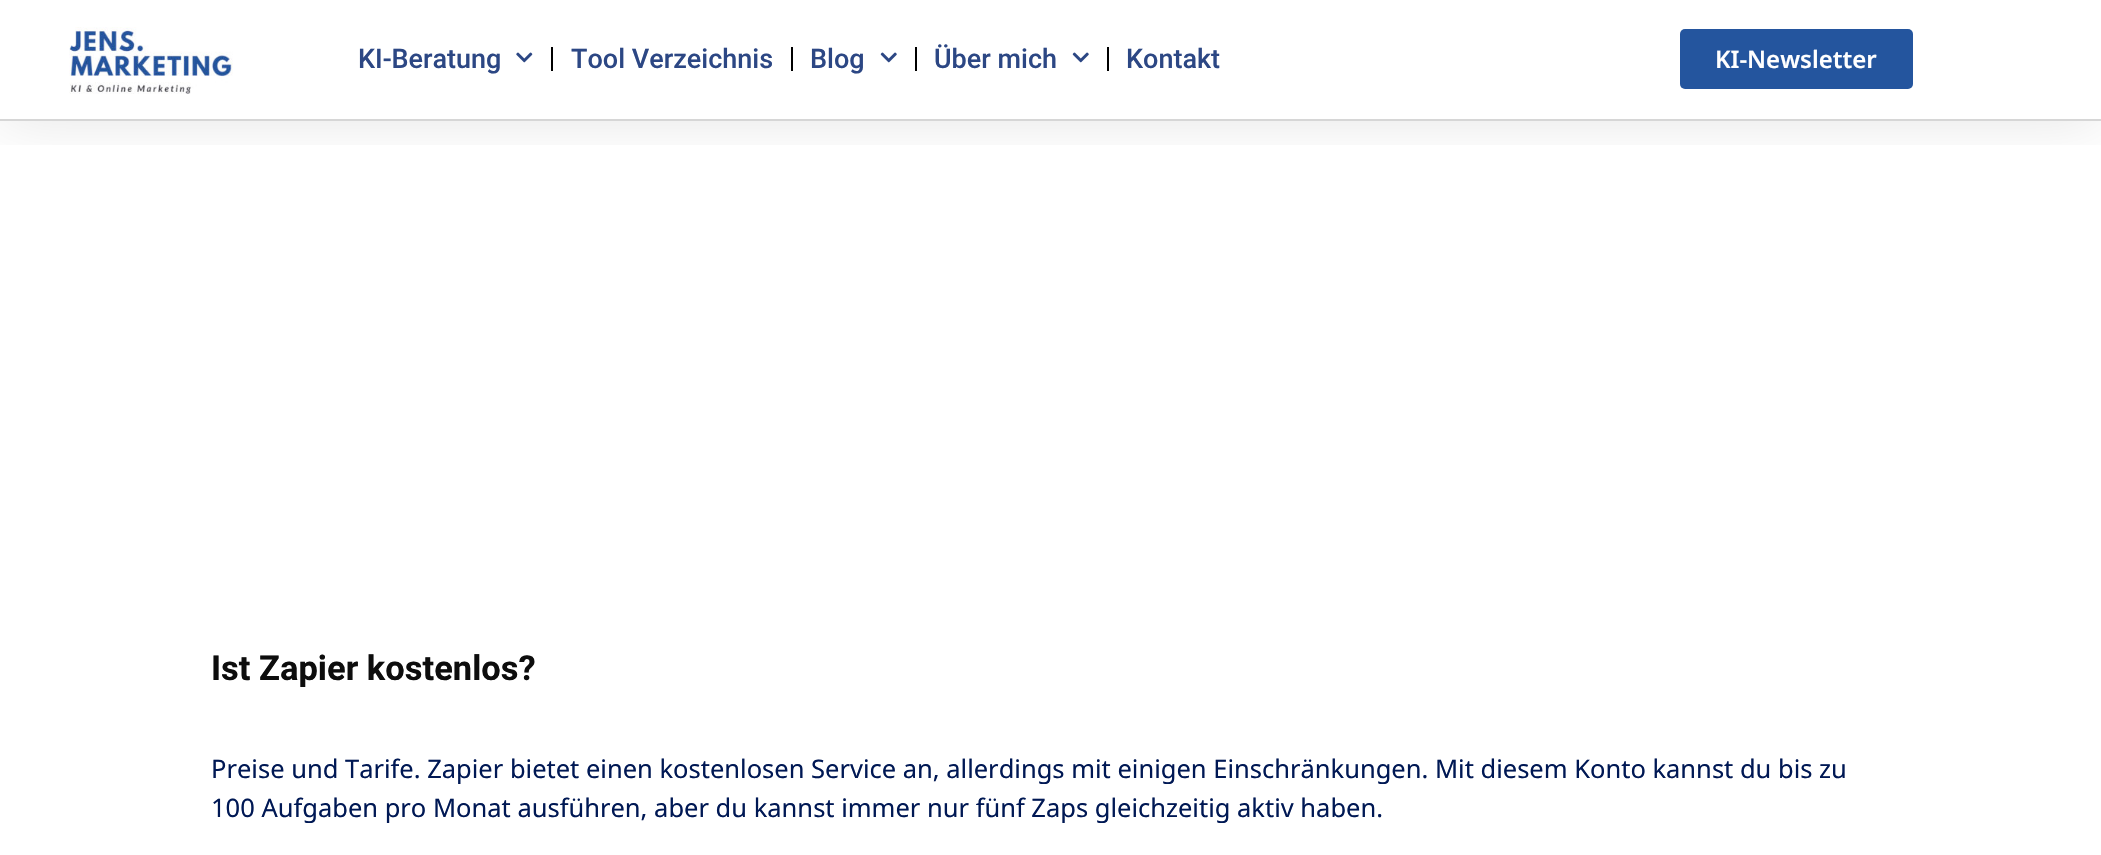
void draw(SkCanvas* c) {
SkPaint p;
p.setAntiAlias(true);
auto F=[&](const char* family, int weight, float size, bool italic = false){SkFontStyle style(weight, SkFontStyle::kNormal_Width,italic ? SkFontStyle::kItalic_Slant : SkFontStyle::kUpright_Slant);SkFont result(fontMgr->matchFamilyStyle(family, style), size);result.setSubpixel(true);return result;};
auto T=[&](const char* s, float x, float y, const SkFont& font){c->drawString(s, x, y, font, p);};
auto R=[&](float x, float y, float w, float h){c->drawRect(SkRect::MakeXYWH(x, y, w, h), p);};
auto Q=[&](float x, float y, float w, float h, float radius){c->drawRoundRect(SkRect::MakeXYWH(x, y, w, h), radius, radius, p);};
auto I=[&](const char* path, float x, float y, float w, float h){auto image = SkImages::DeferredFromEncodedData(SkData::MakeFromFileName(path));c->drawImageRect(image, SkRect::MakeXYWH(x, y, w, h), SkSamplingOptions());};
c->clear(0xffffffff);
c->save();
c->clipRect(SkRect::MakeXYWH(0,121,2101,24));
p.setColor(0x1a000000);
p.setMaskFilter(SkMaskFilter::MakeBlur(kNormal_SkBlurStyle, 30));
c->drawRect(SkRect::MakeXYWH(0,0,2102,120),p);
p.setMaskFilter(nullptr);
c->restore();
p.setColor(0xffd6d6d6);
R(0,119,2101,2);
I("1.png",69,27,164,67);
auto f1 = F("Roboto",500,27);
p.setColor(0xff2c4784);
T("KI-Beratung",358,68,f1);
I("2.png",516,52,17,11);
p.setColor(0xff000000);
R(551,47,2,24);
p.setColor(0xff2c4784);
T("Tool Verzeichnis",571,68,f1);
p.setColor(0xff000000);
R(791,47,2,24);
p.setColor(0xff2c4784);
T("Blog",810,68,f1);
I("3.png",880,52,17,11);
p.setColor(0xff000000);
R(915,47,2,24);
p.setColor(0xff2c4784);
T("Über mich",934,68,f1);
I("3.png",1072,52,17,11);
p.setColor(0xff000000);
R(1107,47,2,24);
p.setColor(0xff2c4784);
T("Kontakt",1126,68,f1);
p.setColor(0xff24559e);
Q(1680,29,233,60,5);
auto f2 = F("Noto Sans",600,24);
p.setColor(0xffffffff);
T("KI-Newsletter",1715,68,f2);
auto f3 = F("Roboto",700,34.5);
p.setColor(0xff0d0d0d);
T("Ist Zapier kostenlos?",211,680,f3);
auto f4 = F("Noto Sans",400,25.5);
p.setColor(0xff001854);
T("Preise und Tarife. Zapier bietet einen kostenlosen Service an, allerdings mit einigen Einschränkungen. Mit diesem Konto kannst du bis zu",211,778,f4);
T("100 Aufgaben pro Monat ausführen, aber du kannst immer nur fünf Zaps gleichzeitig aktiv haben.",211,817,f4);
}
